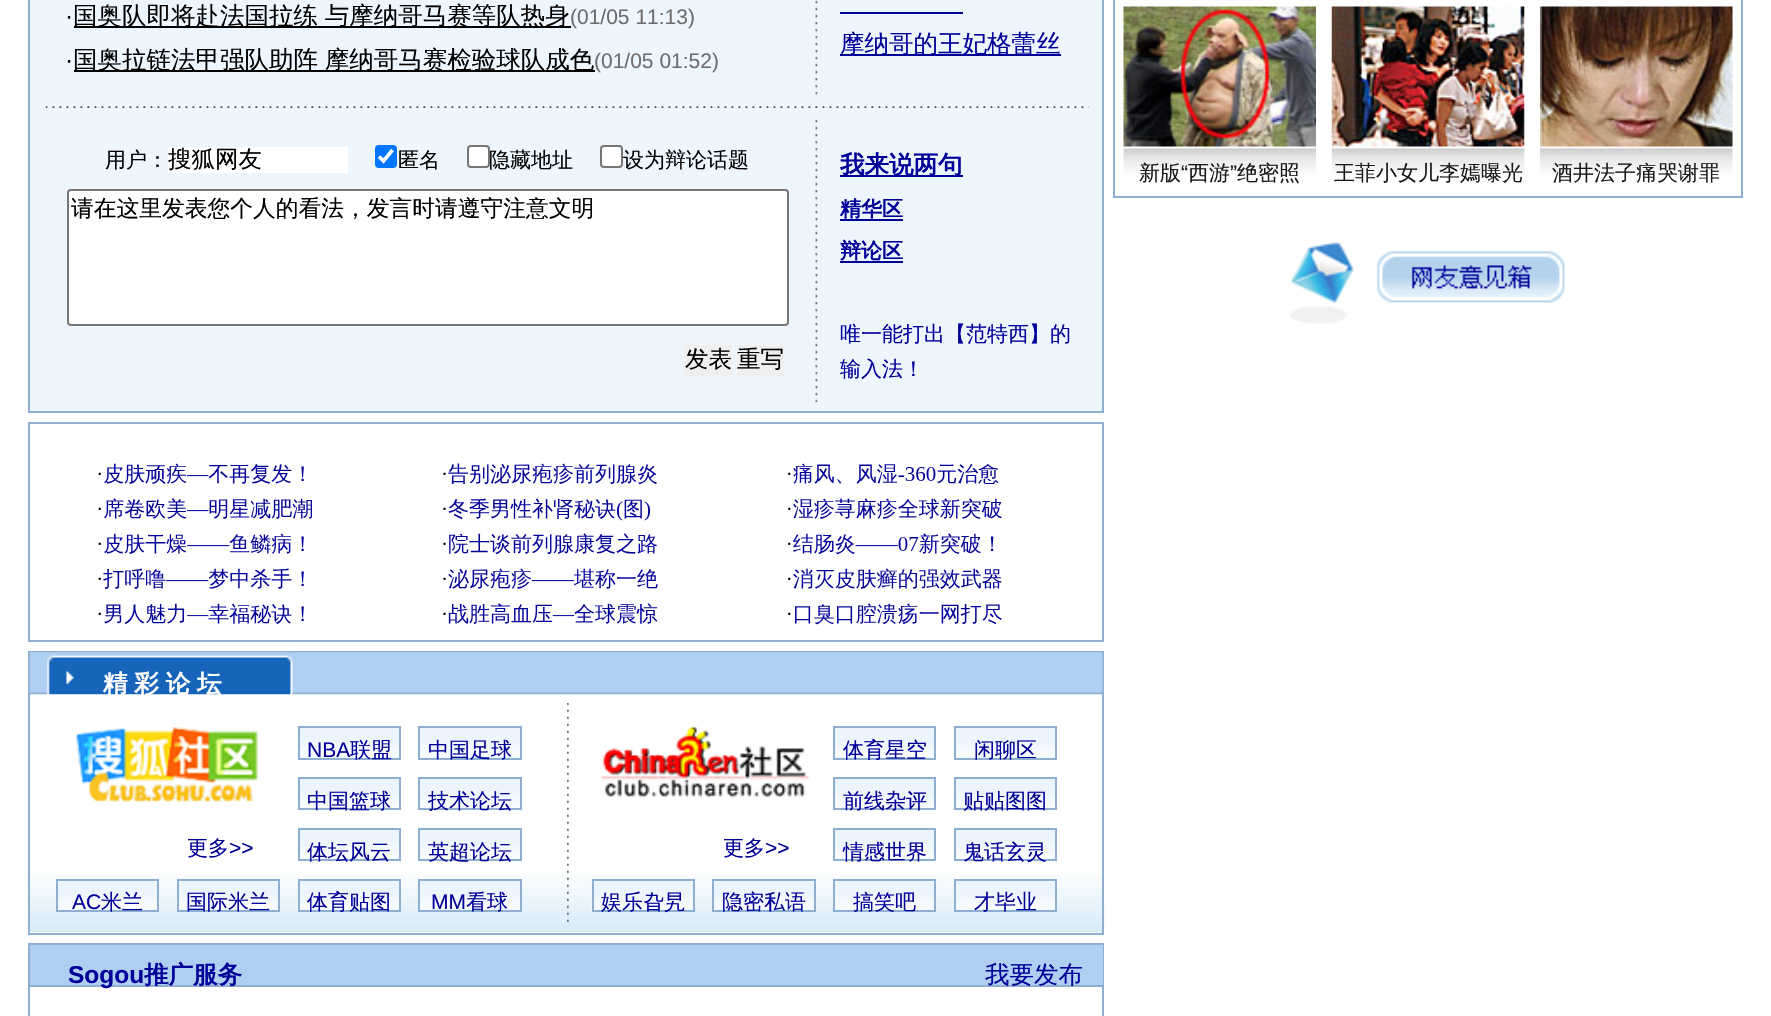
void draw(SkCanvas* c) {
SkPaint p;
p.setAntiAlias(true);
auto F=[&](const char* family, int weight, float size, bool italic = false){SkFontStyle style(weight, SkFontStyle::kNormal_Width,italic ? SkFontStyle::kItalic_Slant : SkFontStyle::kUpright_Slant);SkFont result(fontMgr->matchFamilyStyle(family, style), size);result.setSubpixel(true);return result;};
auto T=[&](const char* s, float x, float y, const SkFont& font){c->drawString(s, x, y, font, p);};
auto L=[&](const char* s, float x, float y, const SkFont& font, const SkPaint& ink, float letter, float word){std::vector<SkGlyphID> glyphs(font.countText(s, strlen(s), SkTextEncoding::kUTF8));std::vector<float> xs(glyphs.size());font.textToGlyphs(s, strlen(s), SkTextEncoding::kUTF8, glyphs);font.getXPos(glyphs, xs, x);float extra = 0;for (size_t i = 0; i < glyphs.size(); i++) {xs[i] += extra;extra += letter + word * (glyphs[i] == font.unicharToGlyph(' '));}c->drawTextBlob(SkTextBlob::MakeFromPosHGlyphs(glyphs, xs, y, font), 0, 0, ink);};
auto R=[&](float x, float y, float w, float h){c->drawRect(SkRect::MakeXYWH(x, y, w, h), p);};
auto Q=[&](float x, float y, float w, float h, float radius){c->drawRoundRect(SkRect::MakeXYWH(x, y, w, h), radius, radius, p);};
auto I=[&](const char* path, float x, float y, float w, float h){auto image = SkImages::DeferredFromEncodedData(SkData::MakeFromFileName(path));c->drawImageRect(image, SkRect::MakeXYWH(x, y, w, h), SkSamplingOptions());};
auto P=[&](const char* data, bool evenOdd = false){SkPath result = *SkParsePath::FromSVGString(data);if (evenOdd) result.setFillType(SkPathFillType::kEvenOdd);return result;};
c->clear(0xffffffff);
p.setColor(0xffedf5fd);
c->drawRect(SkRect::MakeXYWH(29,-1,1074,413),p);
p.setStroke(true);
p.setStrokeWidth(2);
p.setColor(0xff8fafd2);
c->drawRect(SkRect::MakeXYWH(29,-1,1074,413),p);
I("1.png",815,0,3,95);
auto f1 = F("Liberation Sans",400,24.5);
p.setStroke(false);
p.setColor(0xff000000);
T("·",65,24,f1);
R(74,26,497,2);
auto f2 = F("WenQuanYi Zen Hei",500,24.5);
L("国奥队即将赴法国拉练 与摩纳哥马赛等队热身",73,24,f2,p,0,-.5);
auto f3 = F("Liberation Sans",400,21);
p.setColor(0xff6d6d6d);
T("(01/05 11:13)",570,24,f3);
p.setColor(0xff000000);
T("·",65,68,f1);
R(74,70,521,2);
L("国奥拉链法甲强队助阵 摩纳哥马赛检验球队成色",73,68,f2,p,0,-.5);
p.setColor(0xff6d6d6d);
T("(01/05 01:52)",594,68,f3);
p.setColor(0xff000099);
R(840,12,123,2);
R(840,54,221,2);
T("摩纳哥的王妃格蕾丝",840,52,f2);
I("2.png",45,106,1044,2);
I("3.png",815,119,3,283);
auto f4 = F("WenQuanYi Zen Hei",500,21);
p.setColor(0xff000000);
T("用户：",105,167,f4);
p.setColor(0xffffffff);
R(168,147,180,26);
auto f5 = F("WenQuanYi Zen Hei",500,23.5);
p.setColor(0xff000000);
T("搜狐网友",168,167,f5);
p.setColor(0xff0075ff);
Q(375,145,22,23,4);
p.setStroke(true);
p.setStrokeWidth(3.6);
p.setColor(0xffffffff);
c->drawPath(P("M379 156.5l4.5 4.5l9-11"),p);
p.setStroke(false);
p.setColor(0xff000000);
T("匿名",398,167,f4);
p.setColor(0xffffffff);
c->drawRoundRect(SkRect::MakeXYWH(468,146,21,21),3,3,p);
p.setStroke(true);
p.setStrokeWidth(2);
p.setColor(0xff767676);
c->drawRoundRect(SkRect::MakeXYWH(468,146,21,21),3,3,p);
p.setStroke(false);
p.setColor(0xff000000);
T("隐藏地址",489,167,f4);
p.setColor(0xffffffff);
c->drawRoundRect(SkRect::MakeXYWH(601,146,21,21),3,3,p);
p.setStroke(true);
p.setColor(0xff767676);
c->drawRoundRect(SkRect::MakeXYWH(601,146,21,21),3,3,p);
p.setStroke(false);
p.setColor(0xff000000);
T("设为辩论话题",623,167,f4);
p.setColor(0xffffffff);
c->drawRoundRect(SkRect::MakeXYWH(68,190,720,135),3,3,p);
p.setStroke(true);
p.setColor(0xff767676);
c->drawRoundRect(SkRect::MakeXYWH(68,190,720,135),3,3,p);
auto f6 = F("WenQuanYi Zen Hei",500,22.75);
p.setStroke(false);
p.setColor(0xff000000);
T("请在这里发表您个人的看法，发言时请遵守注意文明",71,216,f6);
p.setColor(0xffefefef);
R(684,345,48,31);
p.setColor(0xff000000);
T("发表",685,367,f5);
p.setColor(0xffefefef);
R(737,345,47,31);
p.setColor(0xff000000);
T("重写",737,367,f5);
p.setColor(0xff000099);
R(840,175,123,2);
auto f7 = F("WenQuanYi Zen Hei",700,24.5);
T("我来说两句",840,173,f7);
auto f8 = F("WenQuanYi Zen Hei",700,21);
T("精华区",840,216,f8);
R(840,219,63,2);
T("辩论区",840,258,f8);
R(840,261,63,2);
T("唯一能打出【范特西】的",840,341,f4);
T("输入法！",840,376,f4);
p.setStroke(true);
p.setColor(0xff8fafd2);
c->drawRect(SkRect::MakeXYWH(29,423,1074,218),p);
I("4.png",98,463,904,162);
I("5.png",30,875,1075,58);
c->drawRect(SkRect::MakeXYWH(29,652,1074,282),p);
I("6.png",29,652,1074,43);
p.setStroke(false);
p.setColor(0xffffffff);
L("精 彩 论 坛",103,692,f7,p,0,-.5);
I("7.png",567,703,2,220);
I("8.png",297,726,102,33);
p.setStroke(true);
p.setColor(0xff8fafd2);
c->drawRect(SkRect::MakeXYWH(299,727,101,32),p);
p.setStroke(false);
p.setColor(0xff000099);
T("NBA",307,757,f3);
T("联盟",350,757,f4);
I("9.png",420,728,100,30);
p.setStroke(true);
p.setColor(0xff8fafd2);
c->drawRect(SkRect::MakeXYWH(419,727,102,32),p);
p.setStroke(false);
p.setColor(0xff000099);
T("中国足球",428,757,f4);
I("10.png",297,777,102,33);
p.setStroke(true);
p.setColor(0xff8fafd2);
c->drawRect(SkRect::MakeXYWH(299,778,101,31),p);
p.setStroke(false);
p.setColor(0xff000099);
T("中国篮球",307,808,f4);
I("11.png",420,779,100,29);
p.setStroke(true);
p.setColor(0xff8fafd2);
c->drawRect(SkRect::MakeXYWH(419,778,102,31),p);
p.setStroke(false);
p.setColor(0xff000099);
T("技术论坛",428,808,f4);
I("12.png",75,727,183,75);
T("更多",187,855,f4);
T(">>",229,855,f3);
I("13.png",297,828,102,33);
p.setStroke(true);
p.setColor(0xff8fafd2);
c->drawRect(SkRect::MakeXYWH(299,829,101,31),p);
p.setStroke(false);
p.setColor(0xff000099);
T("体坛风云",307,859,f4);
I("14.png",420,830,100,29);
p.setStroke(true);
p.setColor(0xff8fafd2);
c->drawRect(SkRect::MakeXYWH(419,829,102,31),p);
p.setStroke(false);
p.setColor(0xff000099);
T("英超论坛",428,859,f4);
I("15.png",58,880,102,31);
p.setStroke(true);
p.setColor(0xff8fafd2);
c->drawRect(SkRect::MakeXYWH(57,880,101,31),p);
p.setStroke(false);
p.setColor(0xff000099);
T("AC",72,909,f3);
T("米兰",101,909,f4);
I("16.png",176,880,102,31);
p.setStroke(true);
p.setColor(0xff8fafd2);
c->drawRect(SkRect::MakeXYWH(178,880,101,31),p);
p.setStroke(false);
p.setColor(0xff000099);
T("国际米兰",186,909,f4);
I("17.png",297,880,102,31);
p.setStroke(true);
p.setColor(0xff8fafd2);
c->drawRect(SkRect::MakeXYWH(299,880,101,31),p);
p.setStroke(false);
p.setColor(0xff000099);
T("体育贴图",307,909,f4);
I("18.png",420,881,100,29);
p.setStroke(true);
p.setColor(0xff8fafd2);
c->drawRect(SkRect::MakeXYWH(419,880,102,31),p);
p.setStroke(false);
p.setColor(0xff000099);
T("MM",431,909,f3);
T("看球",466,909,f4);
I("19.png",835,726,102,33);
p.setStroke(true);
p.setColor(0xff8fafd2);
c->drawRect(SkRect::MakeXYWH(834,727,101,32),p);
p.setStroke(false);
p.setColor(0xff000099);
T("体育星空",843,757,f4);
I("20.png",953,726,102,33);
p.setStroke(true);
p.setColor(0xff8fafd2);
c->drawRect(SkRect::MakeXYWH(955,727,101,32),p);
p.setStroke(false);
p.setColor(0xff000099);
T("闲聊区",974,757,f4);
I("21.png",835,777,102,33);
p.setStroke(true);
p.setColor(0xff8fafd2);
c->drawRect(SkRect::MakeXYWH(834,778,101,31),p);
p.setStroke(false);
p.setColor(0xff000099);
T("前线杂评",843,808,f4);
I("22.png",953,777,102,33);
p.setStroke(true);
p.setColor(0xff8fafd2);
c->drawRect(SkRect::MakeXYWH(955,778,101,31),p);
p.setStroke(false);
p.setColor(0xff000099);
T("贴贴图图",963,808,f4);
I("23.png",601,726,208,72);
T("更多",723,855,f4);
T(">>",765,855,f3);
I("24.png",835,828,102,33);
p.setStroke(true);
p.setColor(0xff8fafd2);
c->drawRect(SkRect::MakeXYWH(834,829,101,31),p);
p.setStroke(false);
p.setColor(0xff000099);
T("情感世界",843,859,f4);
I("25.png",953,828,102,33);
p.setStroke(true);
p.setColor(0xff8fafd2);
c->drawRect(SkRect::MakeXYWH(955,829,101,31),p);
p.setStroke(false);
p.setColor(0xff000099);
T("鬼话玄灵",963,859,f4);
I("17.png",591,880,102,31);
p.setStroke(true);
p.setColor(0xff8fafd2);
c->drawRect(SkRect::MakeXYWH(593,880,101,31),p);
p.setStroke(false);
p.setColor(0xff000099);
T("娱乐旮旯",601,909,f4);
I("18.png",714,881,100,29);
p.setStroke(true);
p.setColor(0xff8fafd2);
c->drawRect(SkRect::MakeXYWH(713,880,102,31),p);
p.setStroke(false);
p.setColor(0xff000099);
T("隐密私语",722,909,f4);
I("15.png",835,880,102,31);
p.setStroke(true);
p.setColor(0xff8fafd2);
c->drawRect(SkRect::MakeXYWH(834,880,101,31),p);
p.setStroke(false);
p.setColor(0xff000099);
T("搞笑吧",853,909,f4);
I("16.png",953,880,102,31);
p.setStroke(true);
p.setColor(0xff8fafd2);
c->drawRect(SkRect::MakeXYWH(955,880,101,31),p);
p.setStroke(false);
p.setColor(0xff000099);
T("才毕业",974,909,f4);
p.setStroke(true);
p.setColor(0xff8fafd2);
c->drawRect(SkRect::MakeXYWH(29,944,1074,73),p);
p.setStroke(false);
p.setColor(0xffaecff1);
R(30,945,1073,40);
p.setColor(0xff8fafd2);
R(30,985,1073,2);
auto f9 = F("Liberation Sans",700,24.5);
p.setColor(0xff000099);
T("Sogou",68,983,f9);
T("推广服务",144,983,f7);
T("我要发布",985,983,f2);
p.setColor(0xff8fafd2);
R(1741,0,2,198);
R(1113,196,630,2);
R(1113,0,2,198);
I("26.png",1123,6,193,141);
I("27.png",1123,148,193,26);
p.setColor(0xff191919);
T("新版",1139,180,f4);
T("“",1181,180,f3);
T("西游",1188,180,f4);
T("”",1230,180,f3);
T("绝密照",1237,180,f4);
I("28.png",1331,6,194,141);
I("29.png",1331,148,194,26);
T("王菲小女儿李嫣曝光",1334,180,f4);
I("30.png",1540,6,193,141);
I("31.png",1540,148,193,26);
T("酒井法子痛哭谢罪",1552,180,f4);
I("32.png",1290,242,275,82);
}
